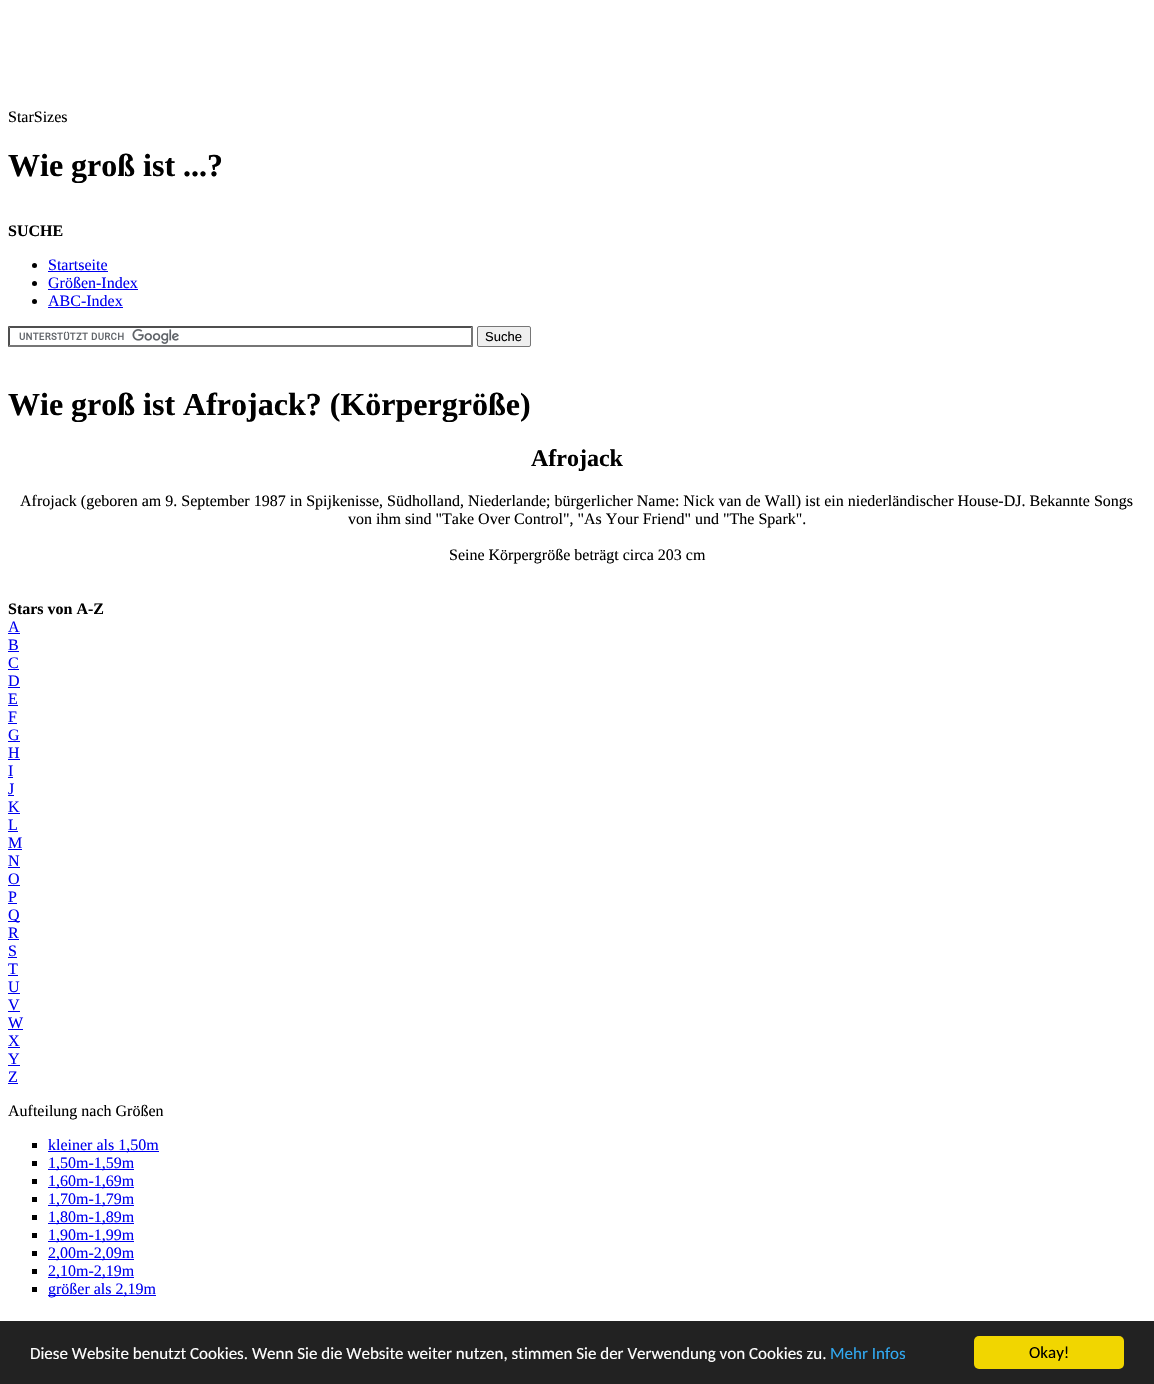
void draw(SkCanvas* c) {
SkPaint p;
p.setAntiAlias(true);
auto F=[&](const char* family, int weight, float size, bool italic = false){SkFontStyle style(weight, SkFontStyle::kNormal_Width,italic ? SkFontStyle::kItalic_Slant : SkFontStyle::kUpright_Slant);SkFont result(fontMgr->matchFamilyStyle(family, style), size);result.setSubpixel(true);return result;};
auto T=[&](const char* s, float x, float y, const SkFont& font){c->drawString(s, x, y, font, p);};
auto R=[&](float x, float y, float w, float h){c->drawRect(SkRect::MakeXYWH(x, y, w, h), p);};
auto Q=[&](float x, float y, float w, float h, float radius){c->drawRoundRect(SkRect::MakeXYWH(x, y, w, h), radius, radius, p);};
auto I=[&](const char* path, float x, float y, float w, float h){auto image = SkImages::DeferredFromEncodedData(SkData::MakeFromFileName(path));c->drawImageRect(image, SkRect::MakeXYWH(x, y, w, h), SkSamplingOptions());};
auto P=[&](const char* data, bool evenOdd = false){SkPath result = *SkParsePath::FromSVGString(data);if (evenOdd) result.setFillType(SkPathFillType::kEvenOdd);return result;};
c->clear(0xffffffff);
auto f1 = F("Liberation Serif",400,16);
p.setColor(0xff000000);
T("StarSizes",8,122,f1);
auto f2 = F("Liberation Serif",700,32);
T("Wie groß ist ...?",8,176,f2);
auto f3 = F("Liberation Serif",700,16);
T("SUCHE",8,236,f3);
c->drawCircle(34.5,265.5,2.5,p);
p.setColor(0xff0000ee);
T("Startseite",48,270,f1);
R(48,271,60,1);
p.setColor(0xff000000);
c->drawCircle(34.5,283.5,2.5,p);
p.setColor(0xff0000ee);
T("Größen-Index",48,288,f1);
R(48,289,90,1);
p.setColor(0xff000000);
c->drawCircle(34.5,301.5,2.5,p);
p.setColor(0xff0000ee);
T("ABC-Index",48,306,f1);
R(48,307,75,1);
I("1.png",19,329,160,15);
p.setColor(0xff4f4f4f);
c->drawPath(P("M8 326h465l-2 2h-461z"),p);
p.setColor(0xff767676);
c->drawPath(P("M473 326v21l-2-2v-17z"),p);
c->drawPath(P("M473 347h-465l2-2h461z"),p);
p.setColor(0xff4f4f4f);
c->drawPath(P("M8 347v-21l2 2v17z"),p);
p.setColor(0xffefefef);
c->drawRoundRect(SkRect::MakeXYWH(477.5,326.5,53,20),1.5,1.5,p);
p.setStroke(true);
p.setStrokeWidth(1);
p.setColor(0xff767676);
c->drawRoundRect(SkRect::MakeXYWH(477.5,326.5,53,20),1.5,1.5,p);
auto f4 = F("Liberation Sans",400,13);
p.setStroke(false);
p.setColor(0xff000000);
T("Suche",485,341,f4);
T("Wie groß ist Afrojack? (Körpergröße)",8,415,f2);
auto f5 = F("Liberation Serif",700,24);
T("Afrojack",531,466,f5);
T("Afrojack (geboren am 9. September 1987 in Spijkenisse, Südholland, Niederlande; bürgerlicher Name: Nick van de Wall) ist ein niederländischer House-DJ. Bekannte Songs",20,506,f1);
T("von ihm sind \"Take Over Control\", \"As Your Friend\" und \"The Spark\".",348,524,f1);
T("Seine Körpergröße beträgt circa 203 cm",449,560,f1);
T("Stars von A-Z",8,614,f3);
p.setColor(0xff0000ee);
T("A",8,632,f1);
R(8,633,12,1);
T("B",8,650,f1);
R(8,651,11,1);
T("C",8,668,f1);
R(8,669,11,1);
T("D",8,686,f1);
R(8,687,12,1);
T("E",8,704,f1);
R(8,705,10,1);
T("F",8,722,f1);
R(8,723,9,1);
T("G",8,740,f1);
R(8,741,12,1);
T("H",8,758,f1);
R(8,759,12,1);
T("I",8,776,f1);
R(8,777,5,1);
T("J",8,794,f1);
R(8,795,6,1);
T("K",8,812,f1);
R(8,813,12,1);
T("L",8,830,f1);
R(8,831,10,1);
T("M",8,848,f1);
R(8,849,14,1);
T("N",8,866,f1);
R(8,867,12,1);
T("O",8,884,f1);
R(8,885,12,1);
T("P",8,902,f1);
R(8,903,9,1);
R(8,921,12,1);
T("Q",8,920,f1);
T("R",8,938,f1);
R(8,939,11,1);
T("S",8,956,f1);
R(8,957,9,1);
T("T",8,974,f1);
R(8,975,10,1);
T("U",8,992,f1);
R(8,993,12,1);
T("V",8,1010,f1);
R(8,1011,12,1);
T("W",8,1028,f1);
R(8,1029,15,1);
T("X",8,1046,f1);
R(8,1047,12,1);
T("Y",8,1064,f1);
R(8,1065,12,1);
T("Z",8,1082,f1);
R(8,1083,10,1);
p.setColor(0xff000000);
T("Aufteilung nach Größen",8,1116,f1);
R(32,1143,5,5);
p.setColor(0xff0000ee);
R(48,1151,111,1);
T("kleiner als 1,50m",48,1150,f1);
p.setColor(0xff000000);
R(32,1161,5,5);
p.setColor(0xff0000ee);
R(48,1169,86,1);
T("1,50m-1,59m",48,1168,f1);
p.setColor(0xff000000);
R(32,1179,5,5);
p.setColor(0xff0000ee);
R(48,1187,86,1);
T("1,60m-1,69m",48,1186,f1);
p.setColor(0xff000000);
R(32,1197,5,5);
p.setColor(0xff0000ee);
R(48,1205,86,1);
T("1,70m-1,79m",48,1204,f1);
p.setColor(0xff000000);
R(32,1215,5,5);
p.setColor(0xff0000ee);
R(48,1223,86,1);
T("1,80m-1,89m",48,1222,f1);
p.setColor(0xff000000);
R(32,1233,5,5);
p.setColor(0xff0000ee);
R(48,1241,86,1);
T("1,90m-1,99m",48,1240,f1);
p.setColor(0xff000000);
R(32,1251,5,5);
p.setColor(0xff0000ee);
R(48,1259,86,1);
T("2,00m-2,09m",48,1258,f1);
p.setColor(0xff000000);
R(32,1269,5,5);
p.setColor(0xff0000ee);
R(48,1277,86,1);
T("2,10m-2,19m",48,1276,f1);
p.setColor(0xff000000);
R(32,1287,5,5);
p.setColor(0xff0000ee);
R(48,1295,108,1);
T("größer als 2,19m",48,1294,f1);
p.setColor(0xff222222);
R(0,1321,1154,63);
auto f6 = F("Carlito",400,17);
p.setColor(0xffffffff);
T("Diese Website benutzt Cookies. Wenn Sie die Website weiter nutzen, stimmen Sie der Verwendung von Cookies zu.",30,1359,f6);
p.setColor(0xff31a8f0);
T("Mehr Infos",830,1359,f6);
p.setColor(0xfff1d600);
Q(974,1336,150,33,5);
p.setColor(0xff000000);
T("Okay!",1029,1358,f6);
}
